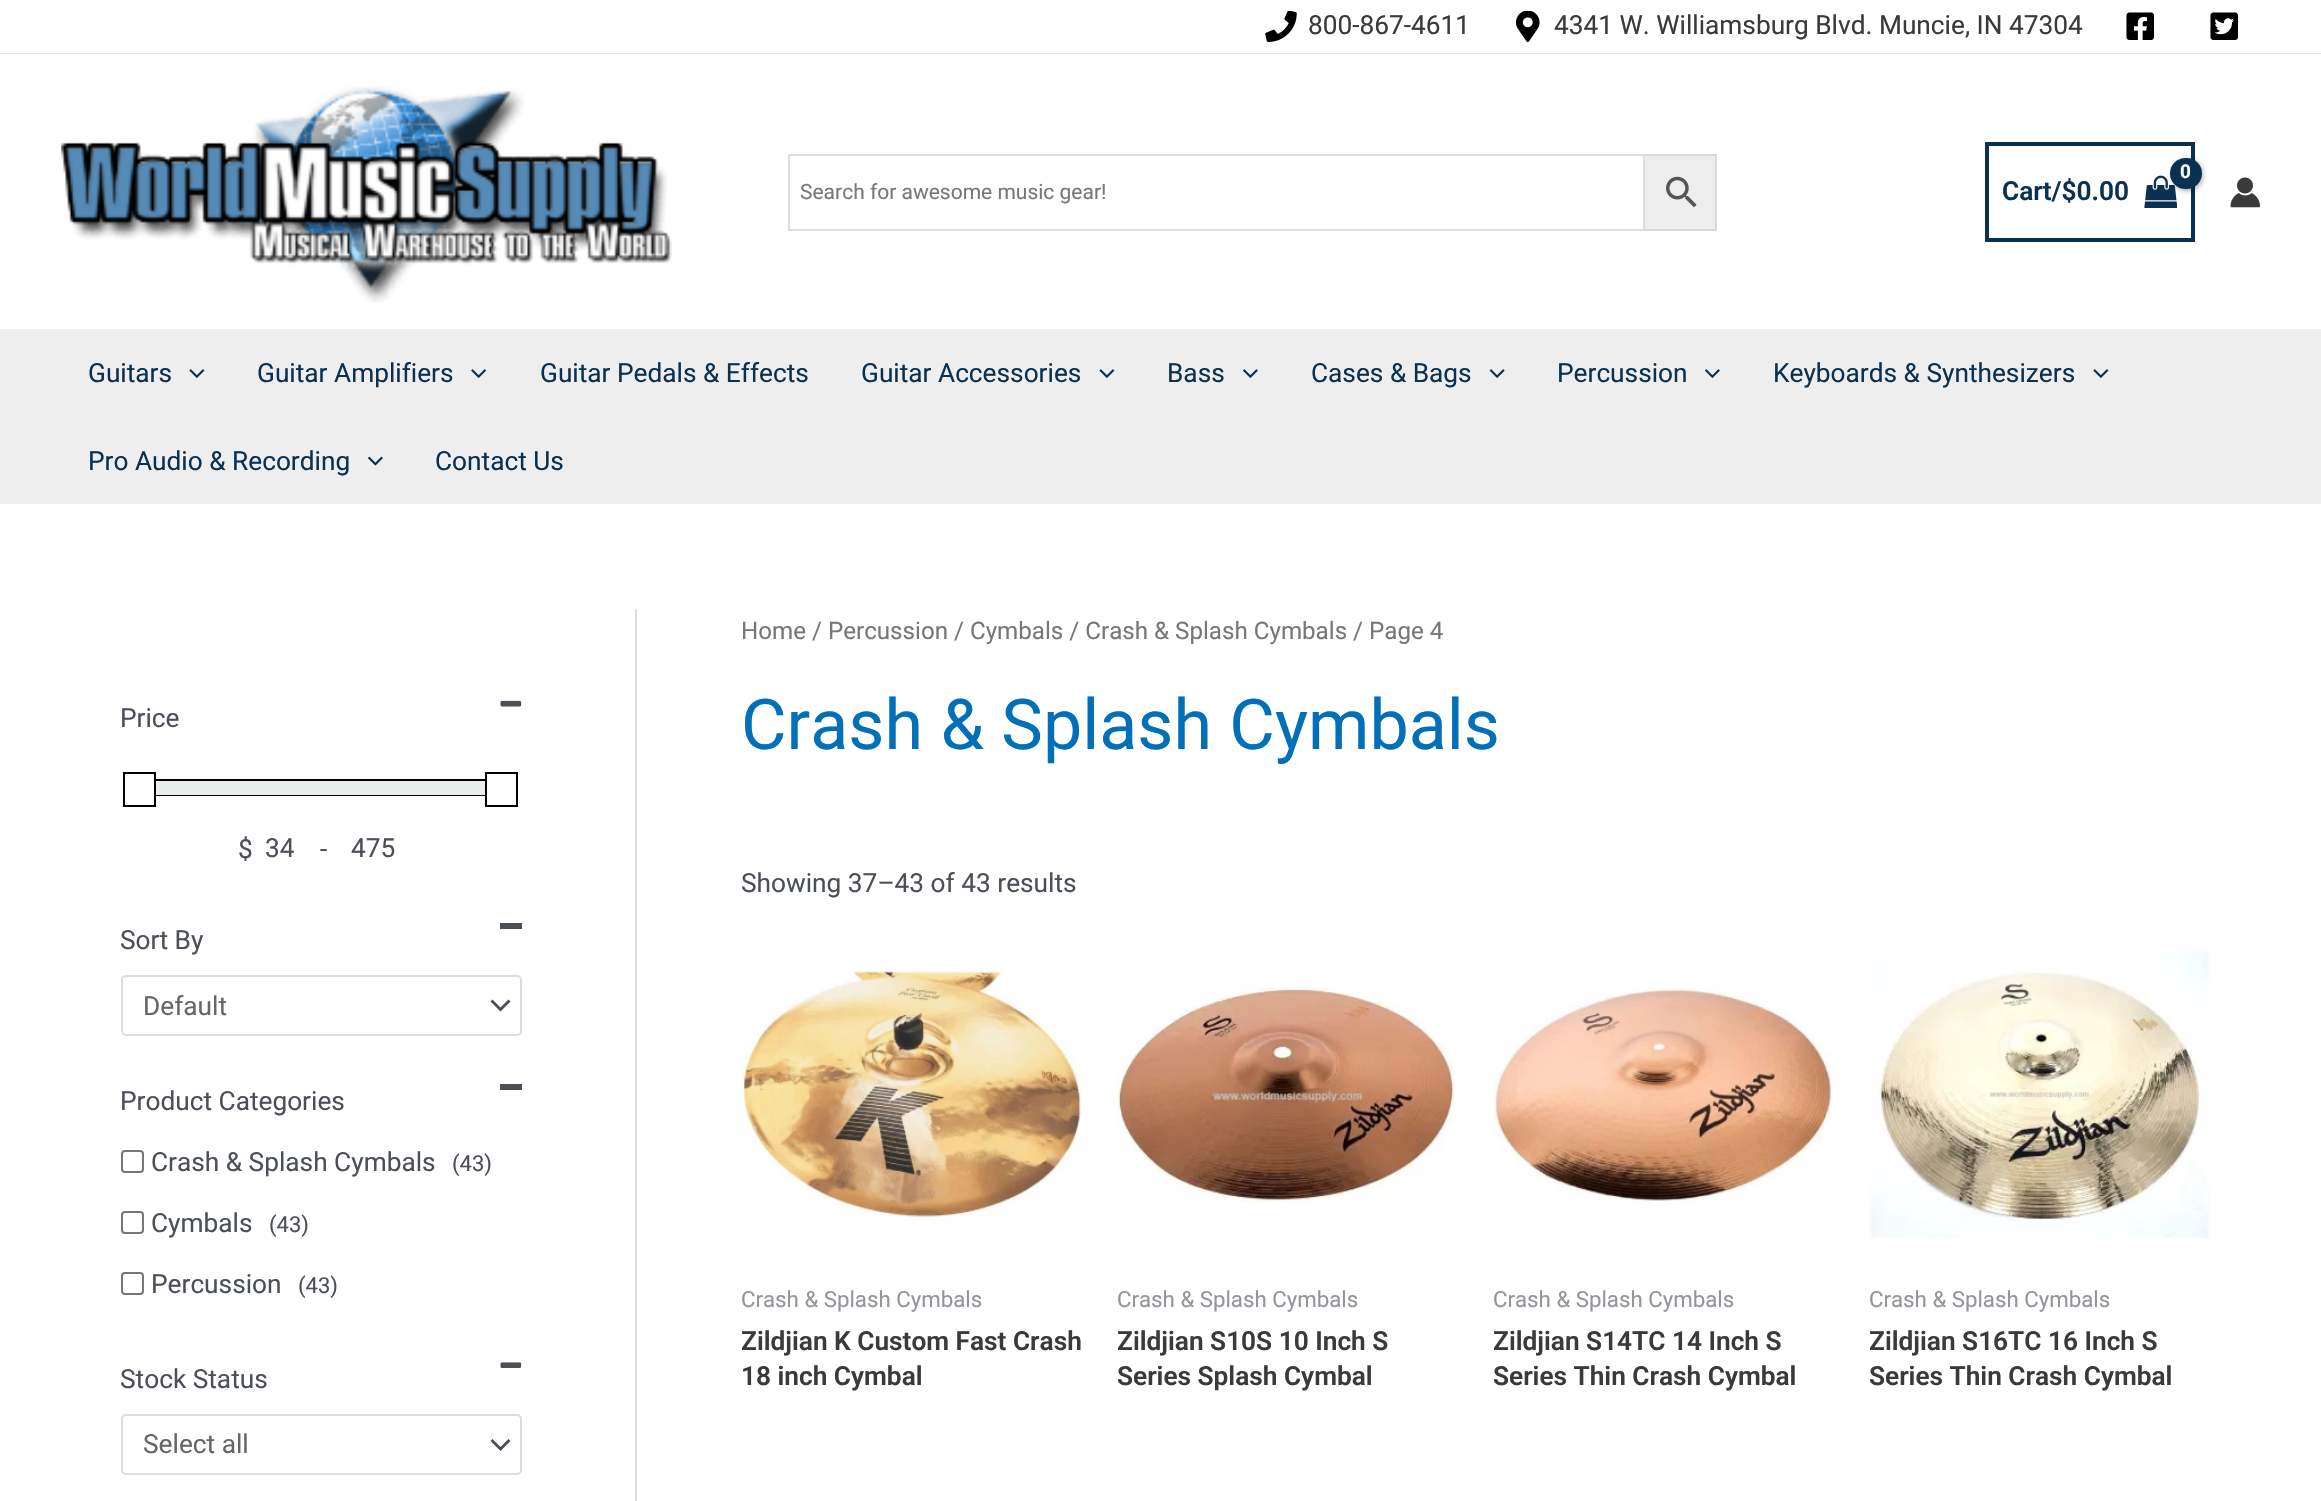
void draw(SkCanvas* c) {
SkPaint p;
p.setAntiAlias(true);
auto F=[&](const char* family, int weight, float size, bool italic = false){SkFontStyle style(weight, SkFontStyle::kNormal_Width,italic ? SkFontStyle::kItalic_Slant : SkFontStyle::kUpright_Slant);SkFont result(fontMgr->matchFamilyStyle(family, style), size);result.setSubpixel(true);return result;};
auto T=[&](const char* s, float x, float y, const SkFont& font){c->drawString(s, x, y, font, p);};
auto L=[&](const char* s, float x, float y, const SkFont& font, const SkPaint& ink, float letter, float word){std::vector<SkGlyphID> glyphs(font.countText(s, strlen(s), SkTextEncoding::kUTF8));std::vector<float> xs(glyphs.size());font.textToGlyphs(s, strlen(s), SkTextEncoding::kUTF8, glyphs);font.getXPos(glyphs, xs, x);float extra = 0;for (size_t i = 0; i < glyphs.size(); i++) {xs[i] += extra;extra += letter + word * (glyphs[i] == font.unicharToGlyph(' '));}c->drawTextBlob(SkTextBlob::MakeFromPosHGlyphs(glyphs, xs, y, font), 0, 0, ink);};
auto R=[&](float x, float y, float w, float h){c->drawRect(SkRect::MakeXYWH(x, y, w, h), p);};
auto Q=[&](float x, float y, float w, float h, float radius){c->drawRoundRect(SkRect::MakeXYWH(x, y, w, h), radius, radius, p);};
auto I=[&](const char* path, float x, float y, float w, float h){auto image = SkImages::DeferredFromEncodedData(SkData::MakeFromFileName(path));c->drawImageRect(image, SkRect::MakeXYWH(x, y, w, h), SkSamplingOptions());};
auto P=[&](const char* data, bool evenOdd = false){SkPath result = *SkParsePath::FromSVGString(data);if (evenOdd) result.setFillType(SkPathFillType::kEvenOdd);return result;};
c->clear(0xffffffff);
p.setColor(0xffe5e5e5);
R(0,53,2321,1);
I("1.png",1265,11,32,31);
auto f1 = F("Roboto",400,26.25);
p.setColor(0xff3a3a3a);
T("800-867-4611",1308,34,f1);
I("2.png",1515,11,25,31);
T("4341 W. Williamsburg Blvd. Muncie, IN 47304",1554,34,f1);
I("3.png",2126,12,29,28);
I("4.png",2210,12,29,28);
I("5.png",61,86,611,217);
p.setColor(0xffededed);
c->drawRect(SkRect::MakeXYWH(1644,155,72,75),p);
p.setStroke(true);
p.setStrokeWidth(2);
p.setColor(0xffd8d8d8);
c->drawRect(SkRect::MakeXYWH(1644,155,72,75),p);
p.setColor(0xffdddddd);
c->drawRect(SkRect::MakeXYWH(789,155,855,75),p);
auto f2 = F("Roboto",400,21);
p.setStroke(false);
p.setColor(0xff777777);
T("Search for awesome music gear!",800,199,f2);
I("6.png",1666,176,31,32);
p.setStroke(true);
p.setStrokeWidth(4);
p.setColor(0xff0a3151);
c->drawRect(SkRect::MakeXYWH(1987,144,206,96),p);
I("7.png",2144,175,33,33);
p.setStroke(false);
p.setColor(0x4d000000);
p.setMaskFilter(SkMaskFilter::MakeBlur(kNormal_SkBlurStyle, 2.5));
c->drawRoundRect(SkRect::MakeXYWH(2172,159,31,32),15.5,15.5,p);
p.setMaskFilter(nullptr);
p.setColor(0xff0a3151);
Q(2170,158,32,31,15.5);
auto f3 = F("Roboto",700,19);
p.setColor(0xffffffff);
L("0",2180,178,f3,p,-1,0);
auto f4 = F("Roboto",600,26.25);
p.setColor(0xff0a3151);
T("Cart/$0.00",2002,200,f4);
I("8.png",2230,177,30,31);
p.setColor(0xffeeeeee);
R(0,329,2321,175);
p.setColor(0xff0a3151);
T("Guitars",88,382,f1);
I("9.png",189,369,16,10);
T("Guitar Amplifiers",257,382,f1);
I("10.png",471,369,16,10);
T("Guitar Pedals & Effects",540,382,f1);
T("Guitar Accessories",861,382,f1);
I("9.png",1099,369,16,10);
T("Bass",1167,382,f1);
I("11.png",1243,369,15,10);
T("Cases & Bags",1311,382,f1);
I("12.png",1489,369,16,10);
T("Percussion",1557,382,f1);
I("11.png",1705,369,15,10);
T("Keyboards & Synthesizers",1773,382,f1);
I("9.png",2093,369,16,10);
T("Pro Audio & Recording",88,470,f1);
I("13.png",368,456,15,10);
T("Contact Us",435,470,f1);
p.setColor(0xffdddddd);
R(635,609,2,892);
I("14.png",500,700,22,7);
p.setColor(0xff4b4f58);
T("Price",120,727,f1);
p.setStroke(true);
p.setStrokeWidth(2);
p.setColor(0xff000000);
c->drawRect(SkRect::MakeXYWH(139,780,364,15),p);
p.setStroke(false);
p.setColor(0xffffffff);
R(138,779,16,17);
p.setStroke(true);
p.setColor(0xff000000);
c->drawRect(SkRect::MakeXYWH(124,773,31,33),p);
p.setStroke(false);
p.setColor(0xffe8eded);
R(156,781,329,14);
p.setColor(0xffffffff);
R(487,779,17,17);
p.setStroke(true);
p.setColor(0xff000000);
c->drawRect(SkRect::MakeXYWH(486,773,31,33),p);
p.setStroke(false);
p.setColor(0xff4b4f58);
T("$",238,858,f1);
T("34",265,857,f1);
T("-",320,858,f1);
T("475",351,857,f1);
R(500,923,22,6);
T("Sort By",120,949,f1);
c->drawPath(P("M490.5 1001.5l10 10l10-10l-2-2l-8 8l-8-8z"),p);
p.setStroke(true);
p.setColor(0xffdddddd);
c->drawRoundRect(SkRect::MakeXYWH(122,976,399,59),4,4,p);
p.setStroke(false);
p.setColor(0xff666666);
T("Default",143,1015,f1);
p.setColor(0xff4b4f58);
R(500,1084,22,6);
T("Product Categories",120,1110,f1);
p.setStroke(true);
p.setColor(0xff767676);
c->drawRoundRect(SkRect::MakeXYWH(122,1151,21,21),3,3,p);
p.setStroke(false);
p.setColor(0xff4b4f58);
T("Crash & Splash Cymbals",151,1171,f1);
auto f5 = F("Roboto",400,22);
T("(43)",452,1171,f5);
p.setStroke(true);
p.setColor(0xff767676);
c->drawRoundRect(SkRect::MakeXYWH(122,1212,21,21),3,3,p);
p.setStroke(false);
p.setColor(0xff4b4f58);
T("Cymbals",151,1232,f1);
T("(43)",269,1232,f5);
p.setStroke(true);
p.setColor(0xff767676);
c->drawRoundRect(SkRect::MakeXYWH(122,1273,21,21),3,3,p);
p.setStroke(false);
p.setColor(0xff4b4f58);
T("Percussion",151,1293,f1);
T("(43)",298,1293,f5);
I("15.png",500,1362,22,6);
T("Stock Status",120,1388,f1);
c->drawPath(P("M490.5 1441l10 10l10-10l-2-2l-8 8l-8-8z"),p);
p.setStroke(true);
p.setColor(0xffdddddd);
c->drawRoundRect(SkRect::MakeXYWH(122,1415,399,59),4,4,p);
p.setStroke(false);
p.setColor(0xff666666);
T("Select all",143,1453,f1);
auto f6 = F("Roboto",400,24.15);
p.setColor(0xff777777);
T("Home / Percussion / Cymbals / Crash & Splash Cymbals / Page 4",741,639,f6);
auto f7 = F("Roboto",400,70);
p.setColor(0xff0170b9);
T("Crash & Splash Cymbals",741,749,f7);
p.setColor(0xff4b4f58);
T("Showing 37–43 of 43 results",741,892,f1);
I("16.png",742,970,340,248);
auto f8 = F("Roboto",400,22.25);
p.setColor(0xff93959b);
T("Crash & Splash Cymbals",741,1307,f8);
p.setColor(0xff3a3a3a);
T("Zildjian K Custom Fast Crash",741,1350,f4);
T("18 inch Cymbal",741,1385,f4);
I("17.png",1116,987,339,217);
p.setColor(0xff93959b);
T("Crash & Splash Cymbals",1117,1307,f8);
p.setColor(0xff3a3a3a);
T("Zildjian S10S 10 Inch S",1117,1350,f4);
T("Series Splash Cymbal",1117,1385,f4);
I("18.png",1494,988,339,214);
p.setColor(0xff93959b);
T("Crash & Splash Cymbals",1493,1307,f8);
p.setColor(0xff3a3a3a);
T("Zildjian S14TC 14 Inch S",1493,1350,f4);
T("Series Thin Crash Cymbal",1493,1385,f4);
I("19.png",1869,950,341,289);
p.setColor(0xff93959b);
T("Crash & Splash Cymbals",1869,1307,f8);
p.setColor(0xff3a3a3a);
T("Zildjian S16TC 16 Inch S",1869,1350,f4);
T("Series Thin Crash Cymbal",1869,1385,f4);
}
